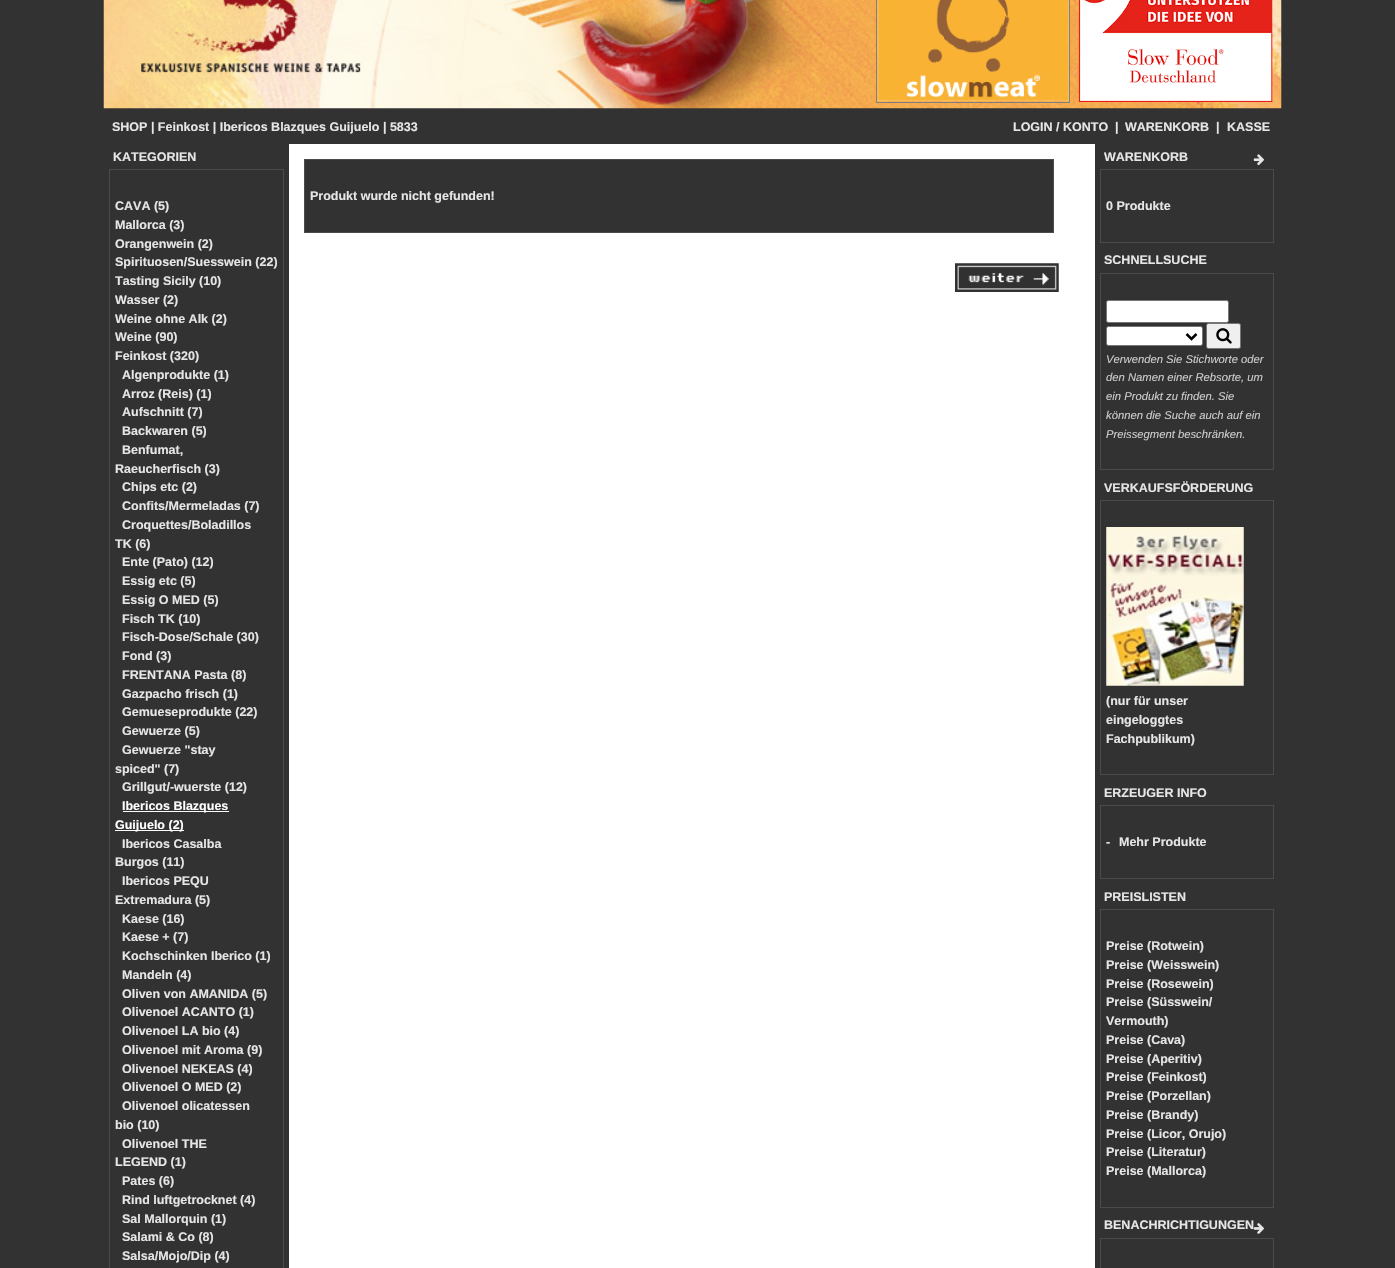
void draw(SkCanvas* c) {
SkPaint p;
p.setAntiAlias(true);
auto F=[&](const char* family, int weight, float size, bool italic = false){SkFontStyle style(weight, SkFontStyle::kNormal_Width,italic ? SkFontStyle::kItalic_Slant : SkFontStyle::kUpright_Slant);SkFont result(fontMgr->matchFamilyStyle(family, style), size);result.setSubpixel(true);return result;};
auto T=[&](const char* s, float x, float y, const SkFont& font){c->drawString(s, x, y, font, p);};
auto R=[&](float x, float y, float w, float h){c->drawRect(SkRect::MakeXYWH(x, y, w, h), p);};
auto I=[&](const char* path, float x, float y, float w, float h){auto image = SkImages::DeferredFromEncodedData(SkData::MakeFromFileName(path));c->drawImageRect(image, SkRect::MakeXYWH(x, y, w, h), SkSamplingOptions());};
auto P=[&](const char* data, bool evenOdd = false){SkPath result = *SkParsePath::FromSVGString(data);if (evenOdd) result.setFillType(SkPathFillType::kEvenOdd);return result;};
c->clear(0xff323232);
I("2.png",103,0,1179,109);
p.setStroke(true);
p.setStrokeWidth(1);
p.setColor(0xff808080);
c->drawRect(SkRect::MakeXYWH(876.5,-.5,193,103),p);
I("1.png",877,0,192,101);
I("3.png",1078,0,195,102);
auto f1 = F("Liberation Sans",700,12.5);
p.setStroke(false);
p.setColor(0xffe6e6e6);
T("SHOP | Feinkost | Ibericos Blazques Guijuelo | 5833",112,131,f1);
T("LOGIN / KONTO",1013,131,f1);
T("|",1115,131,f1);
T("WARENKORB",1125,131,f1);
T("|",1216,131,f1);
T("KASSE",1227,131,f1);
p.setColor(0xffffffff);
R(289,144,806,1124);
p.setColor(0xffe6e6e6);
T("KATEGORIEN",113,161,f1);
p.setStroke(true);
p.setColor(0xff4b4b4b);
c->drawRect(SkRect::MakeXYWH(109.5,169.5,174,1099),p);
p.setStroke(false);
p.setColor(0xffe6e6e6);
T("CAVA (5)",115,210,f1);
T("Mallorca (3)",115,229,f1);
T("Orangenwein (2)",115,248,f1);
T("Spirituosen/Suesswein (22)",115,266,f1);
T("Tasting Sicily (10)",115,285,f1);
T("Wasser (2)",115,304,f1);
T("Weine ohne Alk (2)",115,323,f1);
T("Weine (90)",115,341,f1);
T("Feinkost (320)",115,360,f1);
T("Algenprodukte (1)",122,379,f1);
T("Arroz (Reis) (1)",122,398,f1);
T("Aufschnitt (7)",122,416,f1);
T("Backwaren (5)",122,435,f1);
T("Benfumat,",122,454,f1);
T("Raeucherfisch (3)",115,473,f1);
T("Chips etc (2)",122,491,f1);
T("Confits/Mermeladas (7)",122,510,f1);
T("Croquettes/Boladillos",122,529,f1);
T("TK (6)",115,548,f1);
T("Ente (Pato) (12)",122,566,f1);
T("Essig etc (5)",122,585,f1);
T("Essig O MED (5)",122,604,f1);
T("Fisch TK (10)",122,623,f1);
T("Fisch-Dose/Schale (30)",122,641,f1);
T("Fond (3)",122,660,f1);
T("FRENTANA Pasta (8)",122,679,f1);
T("Gazpacho frisch (1)",122,698,f1);
T("Gemueseprodukte (22)",122,716,f1);
T("Gewuerze (5)",122,735,f1);
T("Gewuerze \"stay",122,754,f1);
T("spiced\" (7)",115,773,f1);
T("Grillgut/-wuerste (12)",122,791,f1);
p.setColor(0xffffffff);
R(123,811,106,1);
T("Ibericos Blazques",122,810,f1);
R(115,830,69,1);
T("Guijuelo (2)",115,829,f1);
p.setColor(0xffe6e6e6);
T("Ibericos Casalba",122,848,f1);
T("Burgos (11)",115,866,f1);
T("Ibericos PEQU",122,885,f1);
T("Extremadura (5)",115,904,f1);
T("Kaese (16)",122,923,f1);
T("Kaese + (7)",122,941,f1);
T("Kochschinken Iberico (1)",122,960,f1);
T("Mandeln (4)",122,979,f1);
T("Oliven von AMANIDA (5)",122,998,f1);
T("Olivenoel ACANTO (1)",122,1016,f1);
T("Olivenoel LA bio (4)",122,1035,f1);
T("Olivenoel mit Aroma (9)",122,1054,f1);
T("Olivenoel NEKEAS (4)",122,1073,f1);
T("Olivenoel O MED (2)",122,1091,f1);
T("Olivenoel olicatessen",122,1110,f1);
T("bio (10)",115,1129,f1);
T("Olivenoel THE",122,1148,f1);
T("LEGEND (1)",115,1166,f1);
T("Pates (6)",122,1185,f1);
T("Rind luftgetrocknet (4)",122,1204,f1);
T("Sal Mallorquin (1)",122,1223,f1);
T("Salami & Co (8)",122,1241,f1);
T("Salsa/Mojo/Dip (4)",122,1260,f1);
p.setColor(0xff323232);
c->drawRect(SkRect::MakeXYWH(304.5,159.5,749,73),p);
p.setStroke(true);
p.setColor(0xff4b4b4b);
c->drawRect(SkRect::MakeXYWH(304.5,159.5,749,73),p);
p.setStroke(false);
p.setColor(0xffe6e6e6);
T("Produkt wurde nicht gefunden!",310,200,f1);
I("4.png",955,263,104,29);
T("WARENKORB",1104,161,f1);
I("5.png",1253,154,11,12);
p.setStroke(true);
p.setColor(0xff4b4b4b);
c->drawRect(SkRect::MakeXYWH(1100.5,169.5,173,73),p);
p.setStroke(false);
p.setColor(0xffe6e6e6);
T("0 Produkte",1106,210,f1);
T("SCHNELLSUCHE",1104,264,f1);
p.setStroke(true);
p.setColor(0xff4b4b4b);
c->drawRect(SkRect::MakeXYWH(1100.5,273.5,173,196),p);
p.setStroke(false);
p.setColor(0xffffffff);
c->drawRoundRect(SkRect::MakeXYWH(1106.5,300.5,122,22),2,2,p);
p.setStroke(true);
p.setColor(0xff767676);
c->drawRoundRect(SkRect::MakeXYWH(1106.5,300.5,122,22),2,2,p);
p.setStroke(false);
p.setColor(0xffffffff);
c->drawRoundRect(SkRect::MakeXYWH(1106.5,326.5,96,19),2,2,p);
p.setStroke(true);
p.setColor(0xff767676);
c->drawRoundRect(SkRect::MakeXYWH(1106.5,326.5,96,19),2,2,p);
p.setStrokeWidth(2.5);
p.setColor(0xff000000);
c->drawPath(P("M1186.5 334l5 5l5-5"),p);
p.setStroke(false);
p.setColor(0xffefefef);
c->drawRoundRect(SkRect::MakeXYWH(1206.5,323.5,34,25),2,2,p);
p.setStroke(true);
p.setStrokeWidth(1);
p.setColor(0xff767676);
c->drawRoundRect(SkRect::MakeXYWH(1206.5,323.5,34,25),2,2,p);
I("6.png",1216,328,16,16);
auto f2 = F("Liberation Sans",400,11.25,true);
p.setStroke(false);
p.setColor(0xffcccccc);
T("Verwenden Sie Stichworte oder",1106,363,f2);
T("den Namen einer Rebsorte, um",1106,381,f2);
T("ein Produkt zu finden. Sie",1106,400,f2);
T("können die Suche auch auf ein",1106,419,f2);
T("Preissegment beschränken.",1106,438,f2);
p.setColor(0xffe6e6e6);
T("VERKAUFSFÖRDERUNG",1104,492,f1);
p.setStroke(true);
p.setColor(0xff4b4b4b);
c->drawRect(SkRect::MakeXYWH(1100.5,500.5,173,274),p);
I("7.png",1106,527,138,159);
p.setStroke(false);
p.setColor(0xffe6e6e6);
T("(nur für unser",1106,705,f1);
T("eingeloggtes",1106,724,f1);
T("Fachpublikum)",1106,743,f1);
T("ERZEUGER INFO",1104,797,f1);
p.setStroke(true);
p.setColor(0xff4b4b4b);
c->drawRect(SkRect::MakeXYWH(1100.5,805.5,173,73),p);
p.setStroke(false);
p.setColor(0xffe6e6e6);
T("-",1106,846,f1);
T("Mehr Produkte",1119,846,f1);
T("PREISLISTEN",1104,901,f1);
p.setStroke(true);
p.setColor(0xff4b4b4b);
c->drawRect(SkRect::MakeXYWH(1100.5,909.5,173,298),p);
p.setStroke(false);
p.setColor(0xffe6e6e6);
T("Preise (Rotwein)",1106,950,f1);
T("Preise (Weisswein)",1106,969,f1);
T("Preise (Rosewein)",1106,988,f1);
T("Preise (Süsswein/",1106,1006,f1);
T("Vermouth)",1106,1025,f1);
T("Preise (Cava)",1106,1044,f1);
T("Preise (Aperitiv)",1106,1063,f1);
T("Preise (Feinkost)",1106,1081,f1);
T("Preise (Porzellan)",1106,1100,f1);
T("Preise (Brandy)",1106,1119,f1);
T("Preise (Licor, Orujo)",1106,1138,f1);
T("Preise (Literatur)",1106,1156,f1);
T("Preise (Mallorca)",1106,1175,f1);
T("BENACHRICHTIGUNGEN",1104,1229,f1);
I("8.png",1253,1223,11,11);
p.setStroke(true);
p.setColor(0xff4b4b4b);
c->drawRect(SkRect::MakeXYWH(1100.5,1238.5,173,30),p);
}
